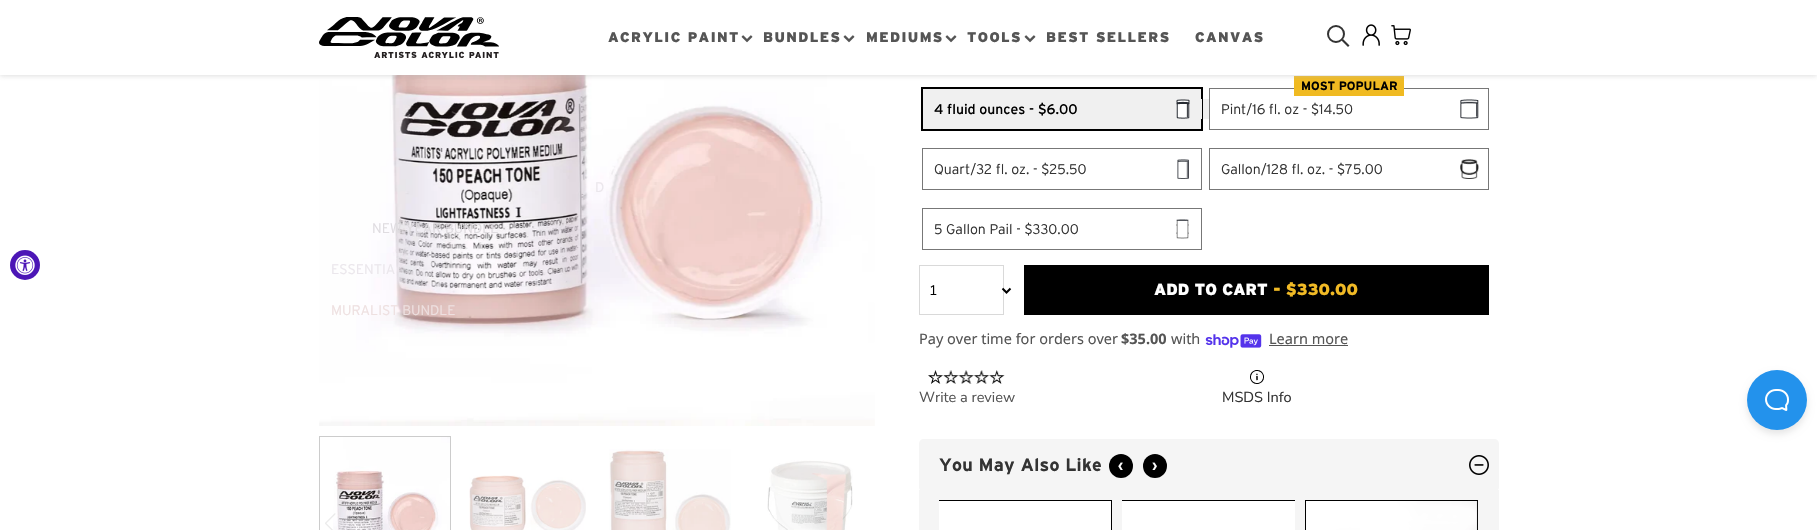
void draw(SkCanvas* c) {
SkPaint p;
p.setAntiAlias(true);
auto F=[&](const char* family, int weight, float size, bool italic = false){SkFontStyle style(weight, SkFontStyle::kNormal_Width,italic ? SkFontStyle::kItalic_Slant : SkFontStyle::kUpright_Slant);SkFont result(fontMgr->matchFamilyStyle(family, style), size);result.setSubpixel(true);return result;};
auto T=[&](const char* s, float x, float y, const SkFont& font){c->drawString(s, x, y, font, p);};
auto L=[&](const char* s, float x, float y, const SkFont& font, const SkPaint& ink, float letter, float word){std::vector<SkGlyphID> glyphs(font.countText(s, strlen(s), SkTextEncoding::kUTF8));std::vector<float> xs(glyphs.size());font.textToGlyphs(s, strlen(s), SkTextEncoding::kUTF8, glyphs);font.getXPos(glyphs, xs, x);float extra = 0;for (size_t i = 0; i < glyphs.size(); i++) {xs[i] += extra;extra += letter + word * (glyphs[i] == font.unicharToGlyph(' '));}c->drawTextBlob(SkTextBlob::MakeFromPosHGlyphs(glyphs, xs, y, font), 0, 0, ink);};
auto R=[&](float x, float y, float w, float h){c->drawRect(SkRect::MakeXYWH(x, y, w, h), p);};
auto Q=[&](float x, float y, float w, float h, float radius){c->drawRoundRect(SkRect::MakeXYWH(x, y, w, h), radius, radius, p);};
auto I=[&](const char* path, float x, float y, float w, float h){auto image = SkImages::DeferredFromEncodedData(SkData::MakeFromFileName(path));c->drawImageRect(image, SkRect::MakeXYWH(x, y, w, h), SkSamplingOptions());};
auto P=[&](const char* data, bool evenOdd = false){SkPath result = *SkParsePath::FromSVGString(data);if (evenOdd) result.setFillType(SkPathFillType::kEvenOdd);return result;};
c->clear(0xffffffff);
p.setColor(0xff4c16b6);
c->drawCircle(25,265,15,p);
I("1.png",15,255,20,20);
I("6.png",319,75,556,351);
p.setStroke(true);
p.setStrokeWidth(1);
p.setColor(0xff777777);
c->drawRect(SkRect::MakeXYWH(1209.5,88.5,279,41),p);
p.setStroke(false);
p.setColor(0xfff0ba21);
R(1294,76,110,20);
p.setColor(0x80bebebe);
p.setMaskFilter(SkMaskFilter::MakeBlur(kNormal_SkBlurStyle, 2.5));
c->drawRect(SkRect::MakeXYWH(0,1,1817,75),p);
p.setMaskFilter(nullptr);
p.setColor(0xffffffff);
R(0,0,1817,75);
I("2.png",319,17,180,41);
p.setStroke(true);
p.setStrokeWidth(2);
p.setColor(0xff333333);
c->drawCircle(1336,34,8,p);
p.setStroke(false);
c->drawPath(P("M1343 39l6.5 6.5l-1.5 1.5l-6.5-6.5z"),p);
I("3.png",1362,24,18,22);
I("4.png",1391,25,20,21);
auto f1 = F("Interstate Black",900,14);
p.setColor(0xff555555);
L("BUNDLES",763,42,f1,p,1.4,0);
I("5.png",843,35,12,8);
auto f2 = F("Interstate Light",300,14);
p.setColor(0xffebe7ec);
T("D",595,192,f2);
p.setColor(0xffdfdce0);
T("NEW YEAR BUNDLE",372,233,f2);
p.setColor(0xffebe7ec);
T("ESSENTIA",331,274,f2);
p.setColor(0xffeee0e0);
T("MURALIST BUNDLE",331,315,f2);
p.setColor(0xff555555);
L("ACRYLIC PAINT",608,42,f1,p,1.4,0);
I("5.png",741,35,12,8);
L("MEDIUMS",866,42,f1,p,1.4,0);
I("5.png",945,35,12,8);
L("TOOLS",967,42,f1,p,1.4,0);
I("5.png",1024,35,12,8);
L("BEST SELLERS",1046,42,f1,p,1.4,0);
L("CANVAS",1195,42,f1,p,1.4,0);
p.setStroke(true);
p.setStrokeWidth(1);
p.setColor(0xffcccccc);
c->drawRect(SkRect::MakeXYWH(319.5,436.5,131,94),p);
I("7.png",333,437,117,93);
I("8.png",469,475,117,55);
I("9.png",609,449,122,81);
I("10.png",767,460,86,70);
I("11.png",325,513,11,17);
p.setStroke(false);
p.setColor(0xfff0f0f0);
c->drawRect(SkRect::MakeXYWH(922.5,88.5,279,41),p);
p.setStroke(true);
p.setColor(0xff000000);
c->drawRect(SkRect::MakeXYWH(922.5,88.5,279,41),p);
p.setStroke(false);
p.setColor(0xfff0f0f0);
R(1201,99,8,20);
p.setStroke(true);
p.setColor(0xff000000);
c->drawRect(SkRect::MakeXYWH(921.5,87.5,281,43),p);
auto f3 = F("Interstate",400,14);
p.setStroke(false);
T("4 fluid ounces - $6.00",934,114,f3);
I("12.png",1176,99,14,20);
auto f4 = F("Interstate",700,12);
T("MOST POPULAR",1301,90,f4);
p.setColor(0xff333333);
T("Pint/16 fl. oz - $14.50",1221,114,f2);
I("13.png",1460,99,19,20);
p.setStroke(true);
p.setColor(0xff777777);
c->drawRect(SkRect::MakeXYWH(922.5,148.5,279,41),p);
p.setStroke(false);
p.setColor(0xff333333);
T("Quart/32 fl. oz. - $25.50",934,174,f2);
I("14.png",1177,159,12,20);
p.setStroke(true);
p.setColor(0xff777777);
c->drawRect(SkRect::MakeXYWH(1209.5,148.5,279,41),p);
p.setStroke(false);
p.setColor(0xff333333);
T("Gallon/128 fl. oz. - $75.00",1221,174,f2);
I("15.png",1460,159,19,20);
p.setStroke(true);
p.setColor(0xff777777);
c->drawRect(SkRect::MakeXYWH(922.5,208.5,279,41),p);
p.setStroke(false);
p.setColor(0xff333333);
T("5 Gallon Pail - $330.00",934,234,f2);
I("16.png",1176,219,13,20);
p.setStroke(true);
p.setColor(0xffd9d9d9);
c->drawRect(SkRect::MakeXYWH(919.5,265.5,84,49),p);
p.setStrokeWidth(2);
p.setColor(0xff000000);
c->drawPath(P("M1002.5 288.5l4 4l4-4"),p);
auto f5 = F("Nunito Sans",400,14);
p.setStroke(false);
T("1",929,295,f5);
R(1024,265,465,50);
auto f6 = F("Interstate Black",900,16);
p.setColor(0xffffffff);
T("ADD TO CART",1154,295,f6);
p.setColor(0xfff1ba25);
T("- $330.00",1273,295,f6);
auto f7 = F("Noto Sans",400,14.5);
p.setColor(0xff555555);
T("Pay over time for orders over",919,344,f7);
auto f8 = F("Noto Sans",700,14.5);
T("$35.00",1121,344,f8);
T("with",1171,344,f7);
I("17.png",1205,334,57,14);
T("Learn more",1269,344,f7);
R(1269,345,79,1);
I("18.png",928,370,77,14);
auto f9 = F("Nunito Sans",400,14.5);
T("Write a review",919,402,f9);
I("19.png",1250,370,14,14);
p.setColor(0xff333333);
T("MSDS Info",1222,402,f9);
p.setColor(0xfff5f5f5);
R(919,490,580,40);
c->save();
c->clipPath(P("M924 439h570c3 0 5 2 5 5v442c0 3-2 5-5 5h-570c-3 0-5-2-5-5v-442c0-3 2-5 5-5z"),true);
Q(919,437,580,55,5);
c->restore();
auto f10 = F("Interstate",700,18);
p.setColor(0xff333333);
L("You May Also Like",939,471,f10,p,.25,0);
I("20.png",1469,455,20,20);
p.setColor(0xff000000);
c->drawCircle(1121,466,12,p);
auto f11 = F("Interstate",700,14);
p.setColor(0xffffffff);
T("‹",1118,470,f11);
p.setColor(0xff000000);
c->drawCircle(1155,466,12,p);
p.setColor(0xffffffff);
T("›",1152,470,f11);
p.setColor(0xff000000);
R(939,500,173,30);
p.setColor(0xffffffff);
R(939,501,172,29);
p.setColor(0xff000000);
R(1122,500,173,1);
p.setColor(0xffffffff);
R(1122,501,173,29);
p.setColor(0xff000000);
R(1305,500,173,30);
I("21.png",1306,501,172,29);
p.setColor(0x1a000000);
p.setMaskFilter(SkMaskFilter::MakeBlur(kNormal_SkBlurStyle, 3.5));
c->drawRoundRect(SkRect::MakeXYWH(1747,374,60,60),30,30,p);
p.setMaskFilter(nullptr);
p.setColor(0xff2392ec);
c->drawCircle(1777,400,30,p);
I("22.png",1765,389,24,22);
}
